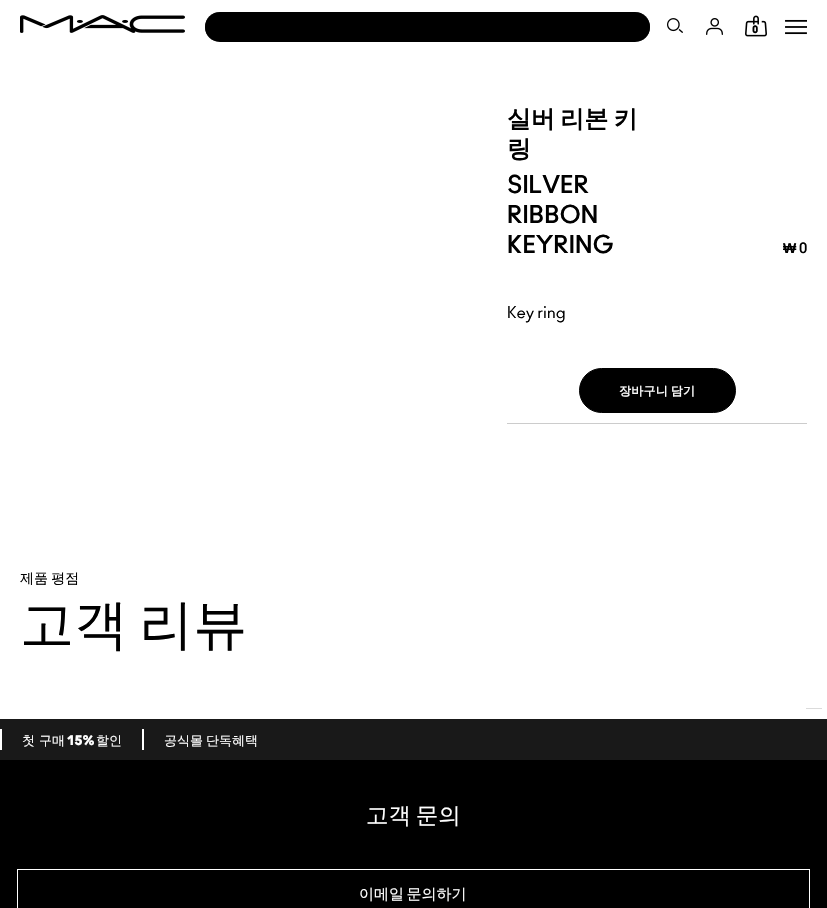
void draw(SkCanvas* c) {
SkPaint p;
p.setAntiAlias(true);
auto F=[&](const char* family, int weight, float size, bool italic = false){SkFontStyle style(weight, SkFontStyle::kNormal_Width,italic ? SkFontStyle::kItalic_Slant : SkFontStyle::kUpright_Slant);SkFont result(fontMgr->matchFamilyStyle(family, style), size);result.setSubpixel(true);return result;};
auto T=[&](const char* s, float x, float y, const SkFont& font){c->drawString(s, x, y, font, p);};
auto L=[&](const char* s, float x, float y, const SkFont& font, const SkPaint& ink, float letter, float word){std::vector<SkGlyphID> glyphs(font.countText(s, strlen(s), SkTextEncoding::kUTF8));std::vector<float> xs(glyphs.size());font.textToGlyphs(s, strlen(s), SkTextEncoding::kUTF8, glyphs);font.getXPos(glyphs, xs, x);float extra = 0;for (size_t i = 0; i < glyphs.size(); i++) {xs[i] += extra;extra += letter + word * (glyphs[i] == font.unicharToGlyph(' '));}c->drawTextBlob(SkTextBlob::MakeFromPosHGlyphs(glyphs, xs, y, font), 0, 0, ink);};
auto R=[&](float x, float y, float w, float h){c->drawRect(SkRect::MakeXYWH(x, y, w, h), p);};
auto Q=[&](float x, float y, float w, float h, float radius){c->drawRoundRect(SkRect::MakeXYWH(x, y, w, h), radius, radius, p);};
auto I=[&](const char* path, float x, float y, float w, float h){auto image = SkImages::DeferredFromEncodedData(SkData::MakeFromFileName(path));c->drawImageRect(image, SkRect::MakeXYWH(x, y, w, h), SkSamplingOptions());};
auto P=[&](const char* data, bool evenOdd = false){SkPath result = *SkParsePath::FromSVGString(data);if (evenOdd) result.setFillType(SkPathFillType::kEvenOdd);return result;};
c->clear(0xffffffff);
I("1.png",20,15,165,18);
p.setColor(0xff000000);
Q(205,12,445,30,15);
{
const SkColor colors[] = {0xe6000000,0x1a000000};
const float stops[] = {0,1};
const SkPoint ends[] = {{205,27}, {225,27}};
p.setShader(SkGradientShader::MakeLinear(ends, colors, stops, 2, SkTileMode::kClamp));
p.setAlpha(255);
}
c->drawPath(P("M220 12h5v30h-5c-8.5 0-15-6.5-15-15c0-8.5 6.5-15 15-15z"),p);
{
const SkColor colors[] = {0xe6000000,0x1a000000};
const float stops[] = {0,1};
const SkPoint ends[] = {{650,27}, {630,27}};
p.setShader(SkGradientShader::MakeLinear(ends, colors, stops, 2, SkTileMode::kClamp));
p.setAlpha(255);
}
c->drawPath(P("M630 12h5c8.5 0 15 6.5 15 15c0 8.5-6.5 15-15 15h-5z"),p);
I("2.png",667,18,16,15);
I("3.png",706,18,17,17);
I("4.png",745,15,22,22);
auto f1 = F("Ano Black",900,10);
p.setShader(nullptr);
p.setColor(0xff000000);
T("0",752,33,f1);
I("5.png",785,19,22,16);
auto f2 = F("WenQuanYi Zen Hei",700,24);
L("실버 리본 키",507,127,f2,p,0,-2);
T("링",507,157,f2);
auto f3 = F("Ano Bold",700,24);
T("SILVER",507,193,f3);
T("RIBBON",507,223,f3);
T("KEYRING",507,253,f3);
auto f4 = F("Liberation Sans",700,14);
T("₩",783,253,f4);
auto f5 = F("Ano Bold",700,14);
T("0",799,253,f5);
auto f6 = F("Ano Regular",400,16);
T("Key ring",507,318,f6);
c->drawRoundRect(SkRect::MakeXYWH(579.5,368.5,156,44),22,22,p);
p.setStroke(true);
p.setStrokeWidth(1);
c->drawRoundRect(SkRect::MakeXYWH(579.5,368.5,156,44),22,22,p);
auto f7 = F("WenQuanYi Zen Hei",700,12);
p.setStroke(false);
p.setColor(0xfff9f9f9);
L("장바구니 담기",619,395,f7,p,.25,-1);
p.setColor(0xffcccccc);
R(507,423,300,1);
auto f8 = F("WenQuanYi Zen Hei",500,14);
p.setColor(0xff000000);
L("제품 평점",20,583,f8,p,0,-1);
auto f9 = F("WenQuanYi Zen Hei",500,54);
L("고객 리뷰",20,643,f9,p,0,-5);
p.setColor(0xffdbdbdb);
R(806,708,16,1);
p.setColor(0xff191919);
R(0,719,827,41);
p.setColor(0xffffffff);
R(0,729,2,21);
auto f10 = F("WenQuanYi Zen Hei",500,13);
T("첫 구매",22,745,f10);
auto f11 = F("Ano Black",900,13);
T("15%",67,745,f11);
T("할인",96,745,f10);
R(142,729,2,21);
L("공식몰 단독혜택",164,745,f10,p,0,-1);
p.setColor(0xff000000);
R(0,760,827,148);
auto f12 = F("WenQuanYi Zen Hei",500,22.5);
p.setColor(0xffffffff);
L("고객 문의",366,823,f12,p,0,-2);
p.setStroke(true);
c->drawRect(SkRect::MakeXYWH(17.5,869.5,792,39),p);
auto f13 = F("WenQuanYi Zen Hei",500,15);
p.setStroke(false);
L("이메일 문의하기",359,899,f13,p,0,-2);
}
